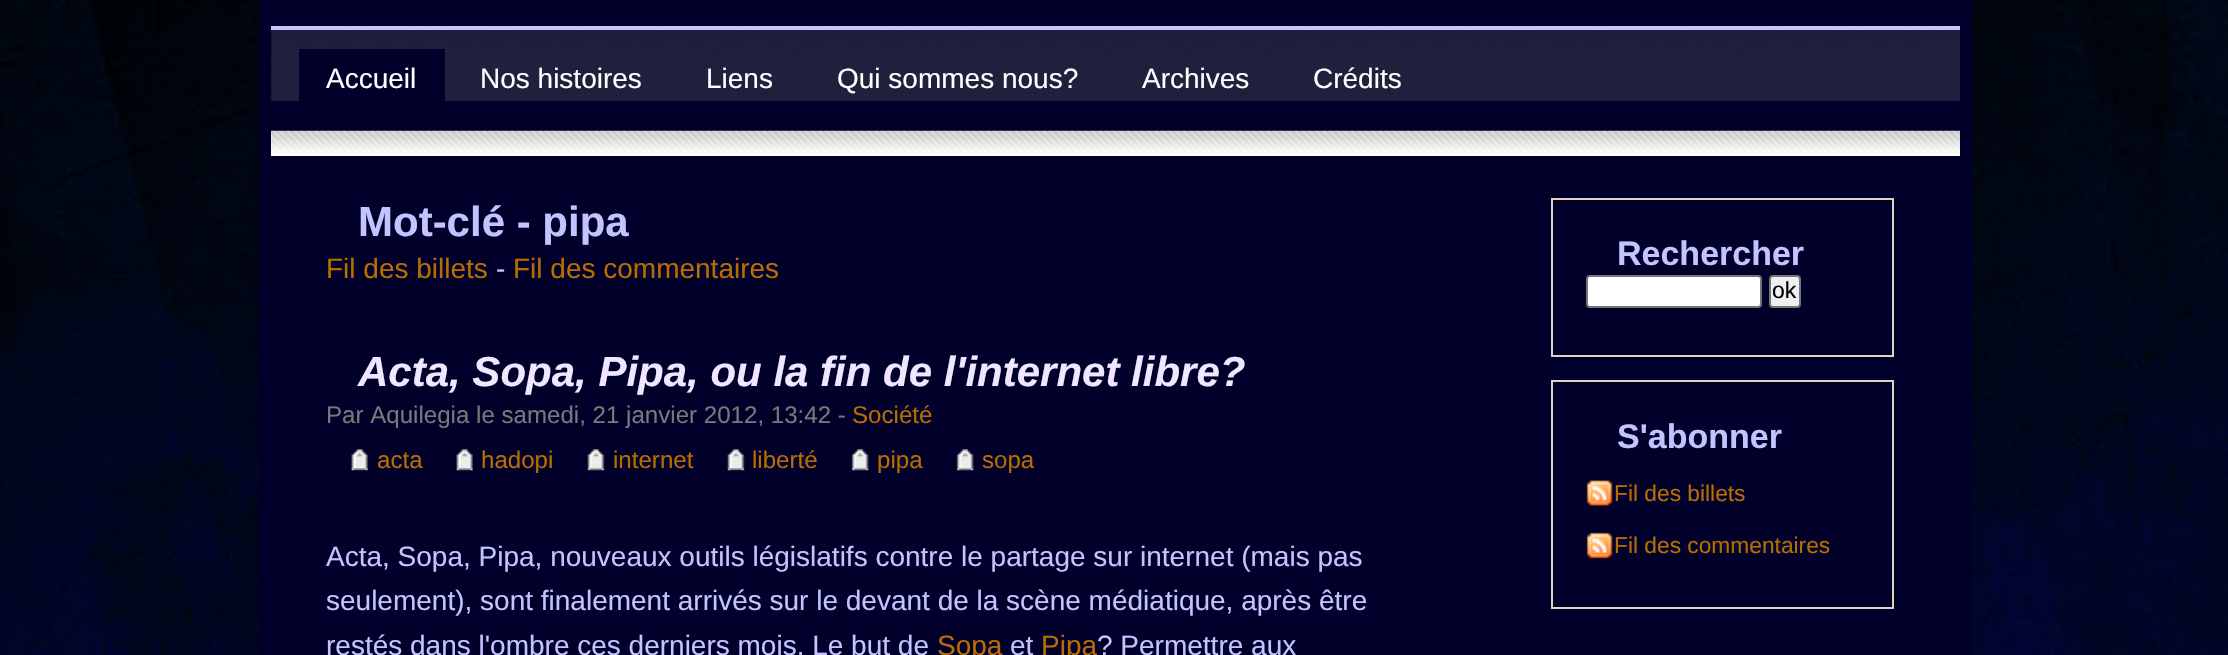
void draw(SkCanvas* c) {
SkPaint p;
p.setAntiAlias(true);
auto F=[&](const char* family, int weight, float size, bool italic = false){SkFontStyle style(weight, SkFontStyle::kNormal_Width,italic ? SkFontStyle::kItalic_Slant : SkFontStyle::kUpright_Slant);SkFont result(fontMgr->matchFamilyStyle(family, style), size);result.setSubpixel(true);return result;};
auto T=[&](const char* s, float x, float y, const SkFont& font){c->drawString(s, x, y, font, p);};
auto R=[&](float x, float y, float w, float h){c->drawRect(SkRect::MakeXYWH(x, y, w, h), p);};
auto I=[&](const char* path, float x, float y, float w, float h){auto image = SkImages::DeferredFromEncodedData(SkData::MakeFromFileName(path));c->drawImageRect(image, SkRect::MakeXYWH(x, y, w, h), SkSamplingOptions());};
c->clear(0xffffffff);
I("1.png",0,0,2228,655);
p.setColor(0xff00002a);
R(259,0,1713,655);
I("2.png",271,30,1689,71);
p.setColor(0xffc3c3ff);
R(271,26,1689,4);
p.setColor(0xff00002a);
R(299,49,146,52);
auto f1 = F("Liberation Sans",400,28);
p.setColor(0xffffffff);
T("Accueil",326,88,f1);
T("Nos histoires",480,88,f1);
T("Liens",706,88,f1);
T("Qui sommes nous?",837,88,f1);
T("Archives",1142,88,f1);
T("Crédits",1313,88,f1);
R(271,131,1689,25);
I("3.png",271,130,1689,24);
auto f2 = F("Liberation Sans",700,42);
p.setColor(0xffc3c3ff);
T("Mot-clé - pipa",358,236,f2);
p.setColor(0xffb96d00);
T("Fil des billets",326,278,f1);
p.setColor(0xffc3c3ff);
T("-",496,278,f1);
p.setColor(0xffb96d00);
T("Fil des commentaires",513,278,f1);
auto f3 = F("Liberation Sans",700,42,true);
p.setColor(0xffeee7ff);
T("Acta, Sopa, Pipa, ou la fin de l'internet libre?",358,386,f3);
auto f4 = F("Liberation Sans",400,24.1);
p.setColor(0xff787878);
T("Par Aquilegia le samedi, 21 janvier 2012, 13:42 -",326,423,f4);
p.setColor(0xffb96d00);
T("Société",852,423,f4);
I("4.png",351,449,17,22);
T("acta",377,468,f4);
I("4.png",456,449,17,22);
T("hadopi",481,468,f4);
I("5.png",587,449,18,22);
T("internet",613,468,f4);
I("6.png",727,449,18,22);
T("liberté",752,468,f4);
I("7.png",851,449,18,22);
T("pipa",877,468,f4);
I("8.png",956,449,18,22);
T("sopa",982,468,f4);
p.setColor(0xffc3c3ff);
T("Acta, Sopa, Pipa, nouveaux outils législatifs contre le partage sur internet (mais pas",326,566,f1);
T("seulement), sont finalement arrivés sur le devant de la scène médiatique, après être",326,610,f1);
T("restés dans l'ombre ces derniers mois. Le but de",326,655,f1);
p.setColor(0xffb96d00);
T("Sopa",937,655,f1);
p.setColor(0xffc3c3ff);
T("et",1010,655,f1);
p.setColor(0xffb96d00);
T("Pipa",1041,655,f1);
p.setColor(0xffc3c3ff);
T("? Permettre aux",1097,655,f1);
p.setStroke(true);
p.setStrokeWidth(2);
p.setColor(0xffe1d2bd);
c->drawRect(SkRect::MakeXYWH(1552,199,341,157),p);
auto f5 = F("Liberation Sans",700,34);
p.setStroke(false);
p.setColor(0xffc3c3ff);
T("Rechercher",1617,265,f5);
p.setColor(0xffffffff);
c->drawRoundRect(SkRect::MakeXYWH(1587,276,174,31),3,3,p);
p.setStroke(true);
p.setColor(0xff767676);
c->drawRoundRect(SkRect::MakeXYWH(1587,276,174,31),3,3,p);
p.setStroke(false);
p.setColor(0xffefefef);
c->drawRoundRect(SkRect::MakeXYWH(1770,276,30,31),3,3,p);
p.setStroke(true);
p.setColor(0xff767676);
c->drawRoundRect(SkRect::MakeXYWH(1770,276,30,31),3,3,p);
auto f6 = F("Liberation Sans",400,23);
p.setStroke(false);
p.setColor(0xff000000);
T("ok",1772,298,f6);
p.setStroke(true);
p.setColor(0xffe1d2bd);
c->drawRect(SkRect::MakeXYWH(1552,381,341,227),p);
p.setStroke(false);
p.setColor(0xffc3c3ff);
T("S'abonner",1617,448,f5);
I("9.png",1586,480,27,26);
auto f7 = F("Liberation Sans",400,22.75);
p.setColor(0xffb96d00);
T("Fil des billets",1614,501,f7);
I("10.png",1586,532,27,27);
T("Fil des commentaires",1614,553,f7);
}
